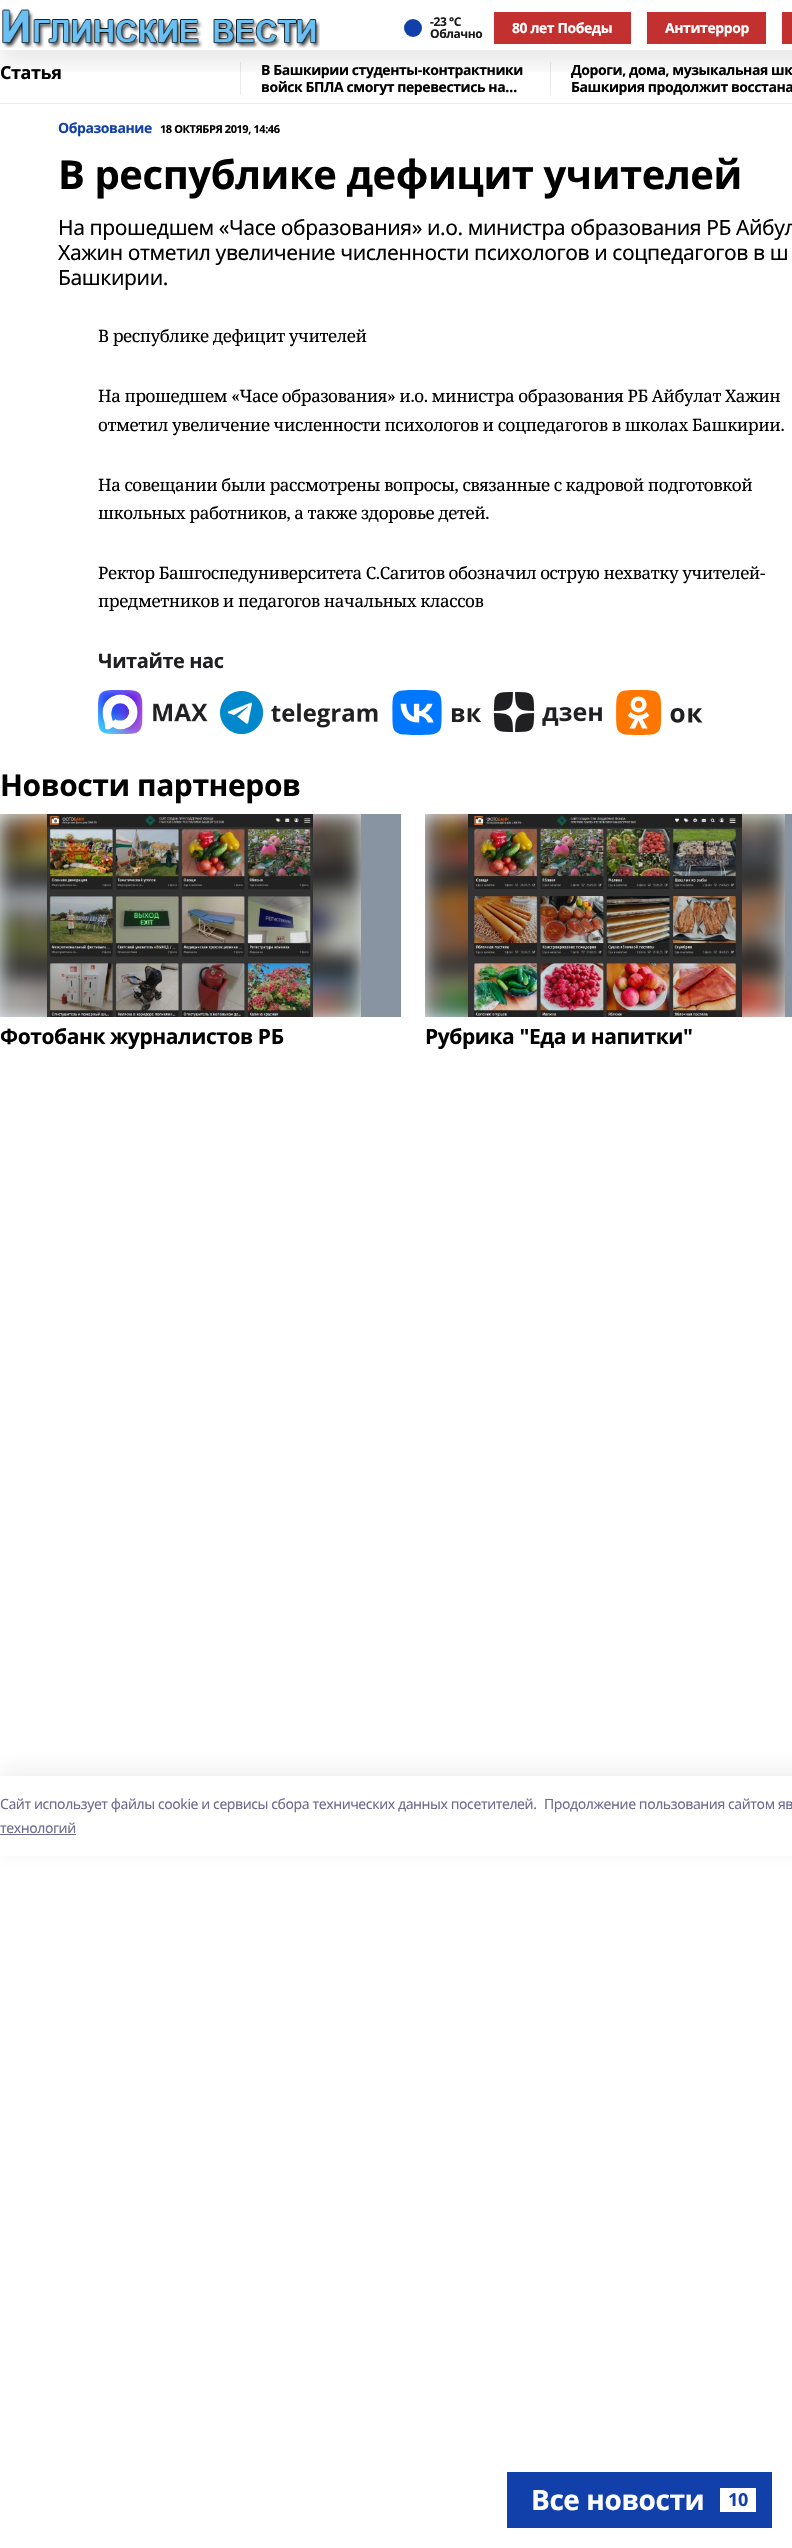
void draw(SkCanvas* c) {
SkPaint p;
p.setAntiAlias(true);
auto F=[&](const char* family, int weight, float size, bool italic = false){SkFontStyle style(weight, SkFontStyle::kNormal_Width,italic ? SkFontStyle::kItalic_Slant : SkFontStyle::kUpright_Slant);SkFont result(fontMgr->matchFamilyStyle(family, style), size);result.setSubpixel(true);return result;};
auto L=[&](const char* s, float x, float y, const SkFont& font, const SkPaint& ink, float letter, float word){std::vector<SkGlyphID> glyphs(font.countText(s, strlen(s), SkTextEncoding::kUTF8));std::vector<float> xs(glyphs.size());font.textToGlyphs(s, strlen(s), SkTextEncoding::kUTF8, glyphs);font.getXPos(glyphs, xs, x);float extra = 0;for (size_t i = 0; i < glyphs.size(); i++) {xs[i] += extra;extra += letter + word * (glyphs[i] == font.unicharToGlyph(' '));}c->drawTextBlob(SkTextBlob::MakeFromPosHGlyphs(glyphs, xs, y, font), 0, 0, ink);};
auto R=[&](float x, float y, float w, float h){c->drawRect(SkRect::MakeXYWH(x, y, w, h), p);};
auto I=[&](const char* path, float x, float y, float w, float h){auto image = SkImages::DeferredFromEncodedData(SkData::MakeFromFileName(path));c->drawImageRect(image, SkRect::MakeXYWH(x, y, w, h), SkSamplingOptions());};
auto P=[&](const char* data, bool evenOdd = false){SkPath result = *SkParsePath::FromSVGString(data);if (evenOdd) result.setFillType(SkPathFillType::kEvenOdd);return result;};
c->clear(0xffffffff);
p.setColor(0xffeaeaea);
R(240,62,1,33);
R(550,62,1,33);
c->save();
c->clipRect(SkRect::MakeXYWH(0,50,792,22));
p.setColor(0x14000000);
p.setMaskFilter(SkMaskFilter::MakeBlur(kNormal_SkBlurStyle, 10));
c->drawRect(SkRect::MakeXYWH(0,15,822,50),p);
p.setMaskFilter(nullptr);
c->restore();
I("1.png",2,9,318,39);
p.setColor(0xff1240ab);
c->drawCircle(413,28,9,p);
auto f1 = F("Noto Sans",700,12);
p.setColor(0xff1a1a1a);
L("-23 °С",430,26,f1,p,-.42,0);
L("Облачно",430,38,f1,p,-.42,0);
p.setColor(0xffc23030);
R(494,12,137,32);
auto f2 = F("Noto Sans",700,14);
p.setColor(0xffffffff);
L("80 лет Победы",512,33,f2,p,-.42,0);
p.setColor(0xffc23030);
R(647,12,119,32);
p.setColor(0xffffffff);
L("Антитеррор",665,33,f2,p,-.42,0);
p.setColor(0xffc23030);
R(782,12,10,32);
p.setColor(0xffeaeaea);
R(0,103,792,1);
auto f3 = F("Noto Sans",700,18);
p.setColor(0xff000000);
L("Статья",0,79,f3,p,-.42,0);
L("В Башкирии студенты-контрактники",261,75,f2,p,-.42,0);
c->save();
c->clipRect(SkRect::MakeXYWH(241,62,309,33));
L("войск БПЛА смогут перевестись на…",261,92,f2,p,-.42,0);
c->restore();
L("Дороги, дома, музыкальная шк",571,75,f2,p,-.42,0);
c->save();
c->clipRect(SkRect::MakeXYWH(551,62,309,33));
L("Башкирия продолжит восстана",571,92,f2,p,-.42,0);
c->restore();
p.setColor(0xff1240ab);
L("Образование",58,133,f2,p,-.42,0);
auto f4 = F("Noto Sans",700,11);
p.setColor(0xff000000);
L("18 ОКТЯБРЯ 2019, 14:46",160,133,f4,p,-.42,0);
auto f5 = F("Noto Sans",700,40);
L("В республике дефицит учителей",58,189,f5,p,-.42,0);
auto f6 = F("Noto Sans",400,21);
L("На прошедшем «Часе образования» и.о. министра образования РБ Айбул",58,235,f6,p,-.42,0);
L("Хажин отметил увеличение численности психологов и соцпедагогов в ш",58,260,f6,p,-.42,0);
L("Башкирии.",58,285,f6,p,-.42,0);
auto f7 = F("Noto Serif",400,17);
L("В республике дефицит учителей",98,342,f7,p,-.42,0);
L("На прошедшем «Часе образования» и.о. министра образования РБ Айбулат Хажин",98,402,f7,p,-.42,0);
L("отметил увеличение численности психологов и соцпедагогов в школах Башкирии.",98,431,f7,p,-.42,0);
L("На совещании были рассмотрены вопросы, связанные с кадровой подготовкой",98,491,f7,p,-.42,0);
L("школьных работников, а также здоровье детей.",98,519,f7,p,-.42,0);
L("Ректор Башгоспедуниверситета С.Сагитов обозначил острую нехватку учителей-",98,579,f7,p,-.42,0);
L("предметников и педагогов начальных классов",98,607,f7,p,-.42,0);
auto f8 = F("Noto Sans",700,20);
p.setColor(0xff202022);
L("Читайте нас",98,668,f8,p,-.42,0);
I("2.png",98,690,110,44);
I("3.png",220,691,158,43);
I("4.png",392,690,89,45);
I("5.png",494,692,108,40);
I("6.png",616,690,87,45);
auto f9 = F("Noto Sans",700,30);
p.setColor(0xff000000);
L("Новости партнеров",0,796,f9,p,-.42,0);
p.setColor(0xff8894a2);
R(361,814,40,203);
p.setColor(0xffedf2f7);
R(0,814,361,203);
I("7.png",0,814,361,203);
I("8.png",47,814,266,203);
auto f10 = F("Noto Sans",700,21);
p.setColor(0xff000000);
L("Фотобанк журналистов РБ",0,1044,f10,p,-.42,0);
p.setColor(0xff8894a2);
R(785,814,7,203);
p.setColor(0xffedf2f7);
R(425,814,360,203);
I("9.png",425,814,360,203);
I("10.png",468,814,274,203);
p.setColor(0xff000000);
L("Рубрика \"Еда и напитки\"",425,1044,f10,p,-.42,0);
p.setColor(0xff1240ab);
R(507,2472,265,56);
auto f11 = F("Noto Sans",700,28);
p.setColor(0xffffffff);
L("Все новости",531,2510,f11,p,-.42,0);
R(720,2488,36,24);
p.setColor(0xff1240ab);
L("10",728,2506,f3,p,-.42,0);
c->save();
c->clipPath(P("M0 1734h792v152h-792zm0 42h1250v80h-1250z",true),true);
p.setColor(0x1414142b);
p.setMaskFilter(SkMaskFilter::MakeBlur(kNormal_SkBlurStyle, 11.5));
c->drawRect(SkRect::MakeXYWH(0,1770,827,80),p);
p.setMaskFilter(nullptr);
c->restore();
auto f12 = F("Noto Sans",400,14);
p.setColor(0xff6f6c90);
L("Cайт использует файлы cookie и сервисы сбора технических данных посетителей.",0,1809,f12,p,-.42,0);
L("Продолжение пользования сайтом яв",544,1809,f12,p,-.42,0);
L("технологий",0,1833,f12,p,-.42,0);
R(0,1834,76,1);
}
